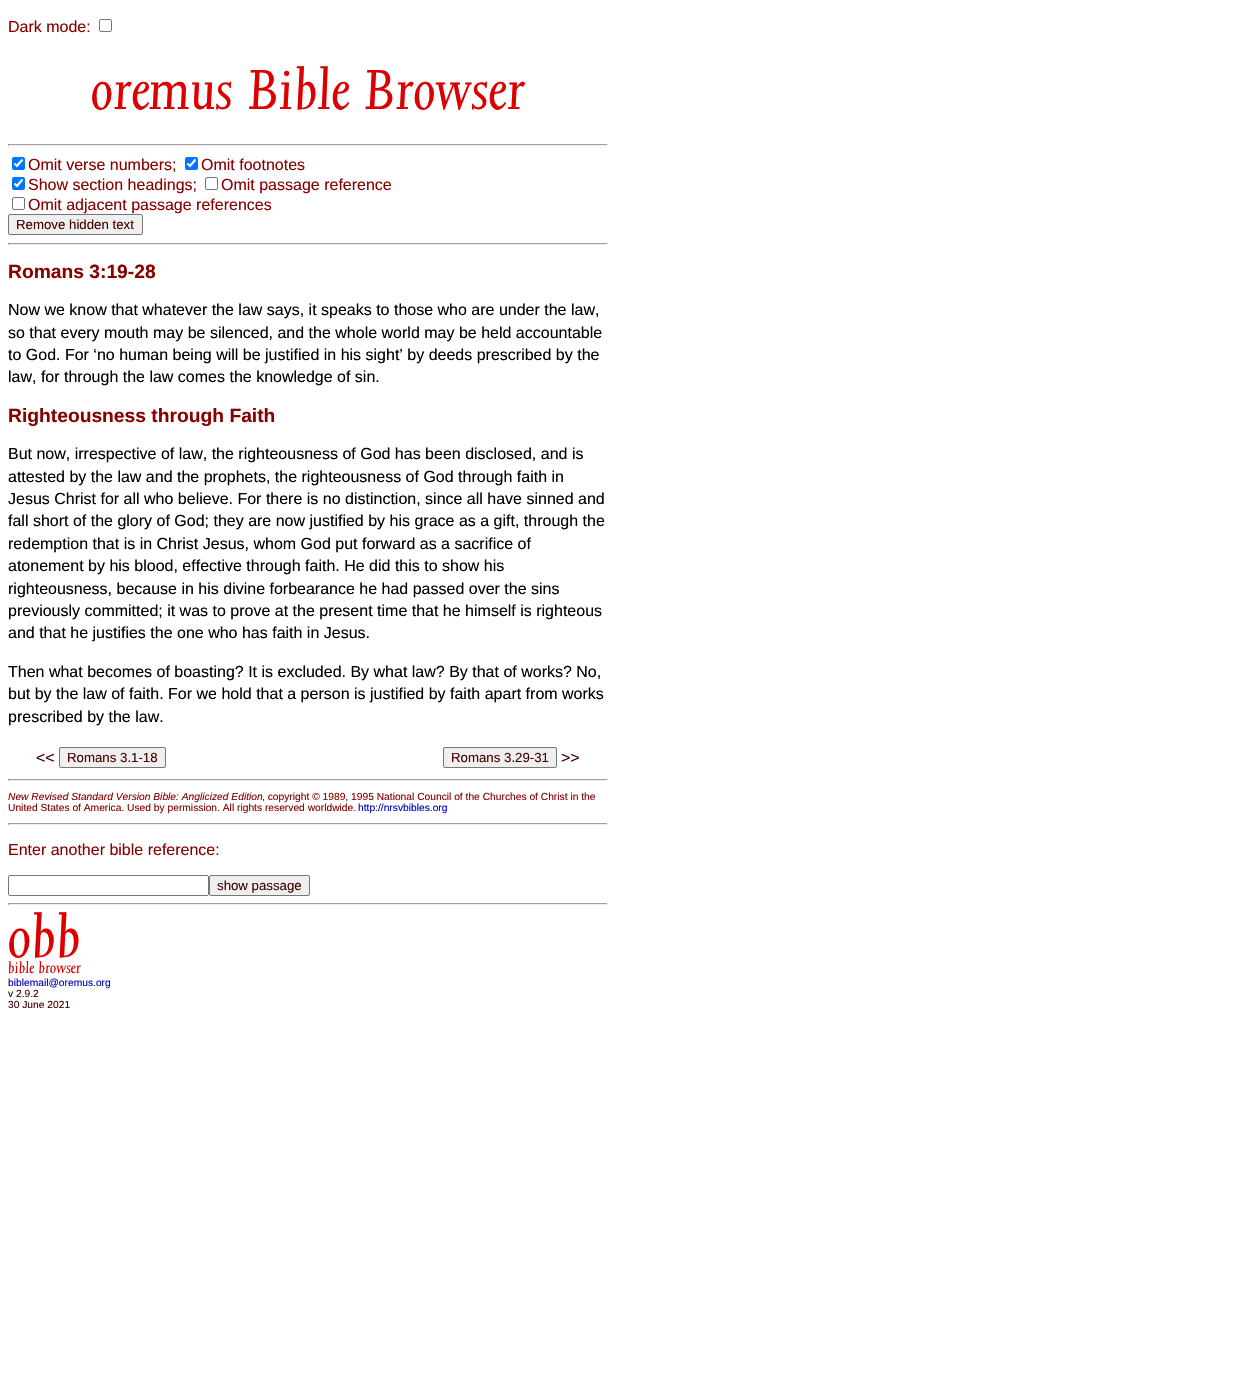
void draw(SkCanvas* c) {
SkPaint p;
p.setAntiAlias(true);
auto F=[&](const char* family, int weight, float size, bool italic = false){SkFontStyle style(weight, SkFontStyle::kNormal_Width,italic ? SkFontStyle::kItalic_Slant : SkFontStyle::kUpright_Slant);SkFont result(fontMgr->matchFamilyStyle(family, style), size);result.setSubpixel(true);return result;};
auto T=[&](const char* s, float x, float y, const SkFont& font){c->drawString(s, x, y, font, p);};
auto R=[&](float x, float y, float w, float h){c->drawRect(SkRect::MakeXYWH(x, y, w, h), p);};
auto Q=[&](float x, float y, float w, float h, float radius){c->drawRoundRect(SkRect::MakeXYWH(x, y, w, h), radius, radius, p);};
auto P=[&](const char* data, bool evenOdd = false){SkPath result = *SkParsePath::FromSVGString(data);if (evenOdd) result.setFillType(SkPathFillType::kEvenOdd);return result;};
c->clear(0xffffffff);
auto f1 = F("Liberation Sans",400,16);
p.setColor(0xff880000);
T("Dark mode:",8,32,f1);
p.setStroke(true);
p.setStrokeWidth(1);
p.setColor(0xff767676);
c->drawRoundRect(SkRect::MakeXYWH(99.5,19.5,12,12),1.5,1.5,p);
auto f2 = F("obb",400,65);
p.setStroke(false);
p.setColor(0xffdd0000);
T("oremus Bible Browser",91,109,f2);
p.setColor(0xff9f9f9f);
R(8,144,600,1);
p.setColor(0xffeeeeee);
R(607,144,1,2);
R(8,145,600,1);
p.setColor(0xff9f9f9f);
R(8,144,1,2);
p.setColor(0xff0075ff);
Q(12,157,13,13,2);
p.setStroke(true);
p.setStrokeWidth(2.1);
p.setColor(0xffffffff);
c->drawPath(P("M14.5 163.5l2.5 2.5l5.5-6.5"),p);
p.setStroke(false);
p.setColor(0xff880000);
T("Omit verse numbers;",28,170,f1);
p.setColor(0xff0075ff);
Q(185,157,13,13,2);
p.setStroke(true);
p.setColor(0xffffffff);
c->drawPath(P("M187.5 163.5l2.5 2.5l5.5-6.5"),p);
p.setStroke(false);
p.setColor(0xff880000);
T("Omit footnotes",201,170,f1);
p.setColor(0xff0075ff);
Q(12,177,13,13,2);
p.setStroke(true);
p.setColor(0xffffffff);
c->drawPath(P("M14.5 183.5l2.5 2.5l5.5-6.5"),p);
p.setStroke(false);
p.setColor(0xff880000);
T("Show section headings;",28,190,f1);
p.setStroke(true);
p.setStrokeWidth(1);
p.setColor(0xff767676);
c->drawRoundRect(SkRect::MakeXYWH(205.5,177.5,12,12),1.5,1.5,p);
p.setStroke(false);
p.setColor(0xff880000);
T("Omit passage reference",221,190,f1);
p.setStroke(true);
p.setColor(0xff767676);
c->drawRoundRect(SkRect::MakeXYWH(12.5,197.5,12,12),1.5,1.5,p);
p.setStroke(false);
p.setColor(0xff880000);
T("Omit adjacent passage references",28,210,f1);
p.setColor(0xffefefef);
c->drawRoundRect(SkRect::MakeXYWH(8.5,214.5,134,20),1.5,1.5,p);
p.setStroke(true);
p.setColor(0xff767676);
c->drawRoundRect(SkRect::MakeXYWH(8.5,214.5,134,20),1.5,1.5,p);
auto f3 = F("Liberation Sans",400,13.25);
p.setStroke(false);
p.setColor(0xff440000);
T("Remove hidden text",16,229,f3);
p.setColor(0xff9f9f9f);
R(8,243,600,1);
p.setColor(0xffeeeeee);
R(607,243,1,2);
R(8,244,600,1);
p.setColor(0xff9f9f9f);
R(8,243,1,2);
auto f4 = F("Liberation Sans",700,19.25);
p.setColor(0xff880000);
T("Romans 3:19-28",8,278,f4);
p.setColor(0xff010000);
T("Now we know that whatever the law says, it speaks to those who are under the law,",8,315,f1);
T("so that every mouth may be silenced, and the whole world may be held accountable",8,338,f1);
T("to God. For ‘no human being will be justified in his sight’ by deeds prescribed by the",8,360,f1);
T("law, for through the law comes the knowledge of sin.",8,382,f1);
p.setColor(0xff880000);
T("Righteousness through Faith",8,422,f4);
p.setColor(0xff010000);
T("But now, irrespective of law, the righteousness of God has been disclosed, and is",8,459,f1);
T("attested by the law and the prophets, the righteousness of God through faith in",8,482,f1);
T("Jesus Christ for all who believe. For there is no distinction, since all have sinned and",8,504,f1);
T("fall short of the glory of God; they are now justified by his grace as a gift, through the",8,526,f1);
T("redemption that is in Christ Jesus, whom God put forward as a sacrifice of",8,549,f1);
T("atonement by his blood, effective through faith. He did this to show his",8,571,f1);
T("righteousness, because in his divine forbearance he had passed over the sins",8,594,f1);
T("previously committed; it was to prove at the present time that he himself is righteous",8,616,f1);
T("and that he justifies the one who has faith in Jesus.",8,638,f1);
T("Then what becomes of boasting? It is excluded. By what law? By that of works? No,",8,677,f1);
T("but by the law of faith. For we hold that a person is justified by faith apart from works",8,699,f1);
T("prescribed by the law.",8,722,f1);
p.setColor(0xff440000);
T("<<",36,763,f1);
p.setColor(0xffefefef);
c->drawRoundRect(SkRect::MakeXYWH(59.5,747.5,106,20),1.5,1.5,p);
p.setStroke(true);
p.setColor(0xff767676);
c->drawRoundRect(SkRect::MakeXYWH(59.5,747.5,106,20),1.5,1.5,p);
p.setStroke(false);
p.setColor(0xff440000);
T("Romans 3.1-18",67,762,f3);
p.setColor(0xffefefef);
c->drawRoundRect(SkRect::MakeXYWH(443.5,747.5,113,20),1.5,1.5,p);
p.setStroke(true);
p.setColor(0xff767676);
c->drawRoundRect(SkRect::MakeXYWH(443.5,747.5,113,20),1.5,1.5,p);
p.setStroke(false);
p.setColor(0xff440000);
T("Romans 3.29-31",451,762,f3);
T(">>",561,763,f1);
p.setColor(0xff9f9f9f);
R(8,779,600,1);
p.setColor(0xffeeeeee);
R(607,779,1,2);
R(8,780,600,1);
p.setColor(0xff9f9f9f);
R(8,779,1,2);
auto f5 = F("Liberation Sans",400,10.25,true);
p.setColor(0xff880000);
T("New Revised Standard Version Bible: Anglicized Edition",8,800,f5);
auto f6 = F("Liberation Sans",400,10.25);
T(", copyright © 1989, 1995 National Council of the Churches of Christ in the",262,800,f6);
T("United States of America. Used by permission. All rights reserved worldwide.",8,811,f6);
p.setColor(0xff0000bb);
T("http://nrsvbibles.org",358,811,f6);
p.setColor(0xff9f9f9f);
R(8,823,600,1);
p.setColor(0xffeeeeee);
R(607,823,1,2);
R(8,824,600,1);
p.setColor(0xff9f9f9f);
R(8,823,1,2);
p.setColor(0xff880000);
T("Enter another bible reference:",8,855,f1);
p.setStroke(true);
p.setColor(0xff767676);
c->drawRoundRect(SkRect::MakeXYWH(8.5,875.5,200,20),1.5,1.5,p);
p.setStroke(false);
p.setColor(0xffefefef);
c->drawRoundRect(SkRect::MakeXYWH(209.5,875.5,100,20),1.5,1.5,p);
p.setStroke(true);
p.setColor(0xff767676);
c->drawRoundRect(SkRect::MakeXYWH(209.5,875.5,100,20),1.5,1.5,p);
p.setStroke(false);
p.setColor(0xff440000);
T("show passage",217,890,f3);
p.setColor(0xff9f9f9f);
R(8,903,600,1);
p.setColor(0xffeeeeee);
R(607,903,1,2);
R(8,904,600,1);
p.setColor(0xff9f9f9f);
R(8,903,1,2);
auto f7 = F("obb",400,68);
p.setColor(0xffdd0000);
T("obb",8,957,f7);
auto f8 = F("obb",400,18);
T("bible browser",8,973,f8);
p.setColor(0xff0000bb);
T("biblemail@oremus.org",8,986,f6);
p.setColor(0xff440000);
T("v 2.9.2",8,997,f6);
T("30 June 2021",8,1008,f6);
}
